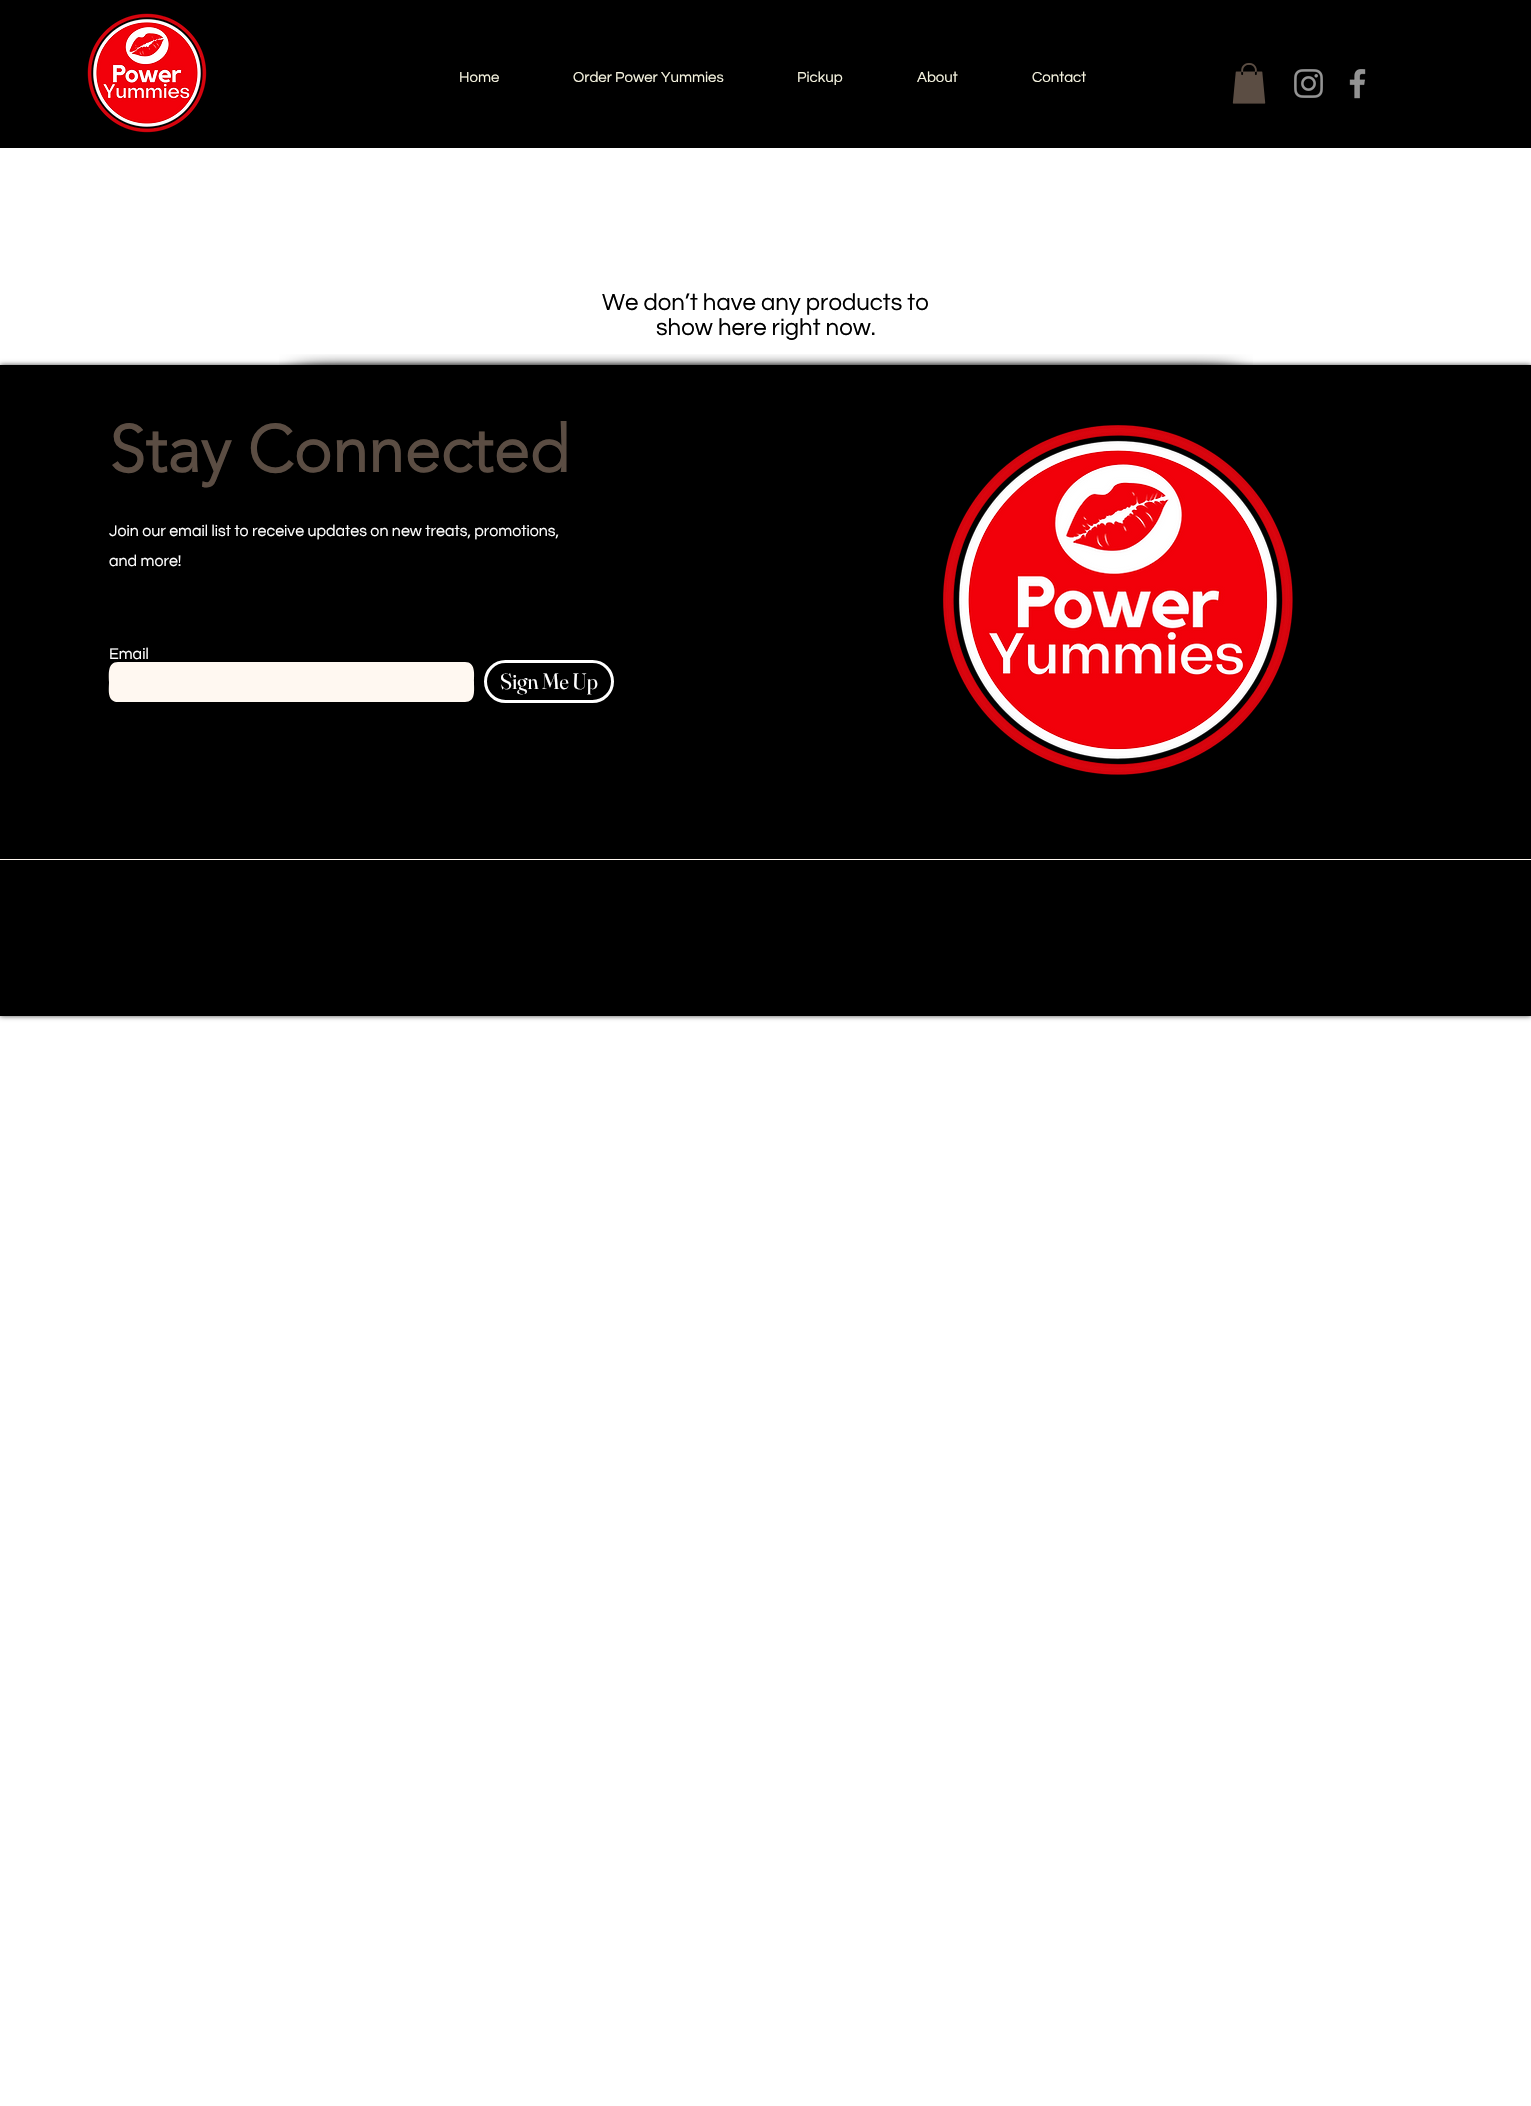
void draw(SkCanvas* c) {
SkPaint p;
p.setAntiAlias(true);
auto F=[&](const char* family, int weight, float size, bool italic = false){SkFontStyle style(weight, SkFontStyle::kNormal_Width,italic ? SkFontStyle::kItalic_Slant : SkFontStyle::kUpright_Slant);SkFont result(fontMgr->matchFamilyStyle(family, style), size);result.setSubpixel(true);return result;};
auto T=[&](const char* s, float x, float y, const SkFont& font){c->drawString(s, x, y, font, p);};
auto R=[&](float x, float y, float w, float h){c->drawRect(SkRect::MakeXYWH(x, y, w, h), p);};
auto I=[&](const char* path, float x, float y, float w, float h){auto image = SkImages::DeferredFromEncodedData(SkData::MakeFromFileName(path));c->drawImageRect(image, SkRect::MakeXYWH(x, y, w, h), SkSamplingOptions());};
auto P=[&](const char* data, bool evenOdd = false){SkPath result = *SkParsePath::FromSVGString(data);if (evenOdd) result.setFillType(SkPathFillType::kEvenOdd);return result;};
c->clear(0xffffffff);
p.setColor(0xff000000);
R(0,0,1531,148);
I("1.png",87,13,120,120);
auto f1 = F("Questrial",400,15);
p.setColor(0xfff7f5e1);
T("Home",459,82,f1);
T("Order Power Yummies",573,82,f1);
T("Pickup",797,82,f1);
T("About",917,82,f1);
T("Contact",1032,82,f1);
I("2.png",1232,63,34,41);
I("3.png",1294,69,29,29);
I("4.png",1349,69,17,30);
auto f2 = F("Questrial",400,24);
p.setColor(0xff000000);
T("We don’t have any products to",602,310,f2);
T("show here right now.",656,335,f2);
p.setColor(0xb3000000);
p.setMaskFilter(SkMaskFilter::MakeBlur(kNormal_SkBlurStyle, 2.5));
c->drawRect(SkRect::MakeXYWH(0,365,1531,651),p);
p.setMaskFilter(nullptr);
p.setColor(0xff000000);
R(0,365,1531,651);
I("5.png",279,354,97,11);
I("6.png",376,354,780,11);
I("7.png",1156,354,97,11);
auto f3 = F("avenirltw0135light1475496",700,65);
p.setColor(0xff5b4d43);
T("Stay Connected",109,472,f3);
auto f4 = F("Questrial",400,16);
p.setColor(0xffffffff);
T("Join our email list to receive updates on new treats, promotions,",109,536,f4);
T("and more!",109,566,f4);
T("Email",109,659,f4);
p.setColor(0xfffff8f1);
c->drawPath(P("M118 662h347c11 0 9 13 9 20c0 8 2 20-9 20h-349c-9-2-7-13-7-20c0-7-2-20 9-20z"),p);
p.setStroke(true);
p.setStrokeWidth(3);
p.setColor(0xffffffff);
c->drawRoundRect(SkRect::MakeXYWH(485.5,661.5,127,40),20,20,p);
auto f5 = F("Fraunces",400,22);
p.setStroke(false);
T("Sign Me Up",500,689,f5);
I("8.png",942,425,351,350);
p.setColor(0xfffff8f1);
R(0,859,1531,1);
}
